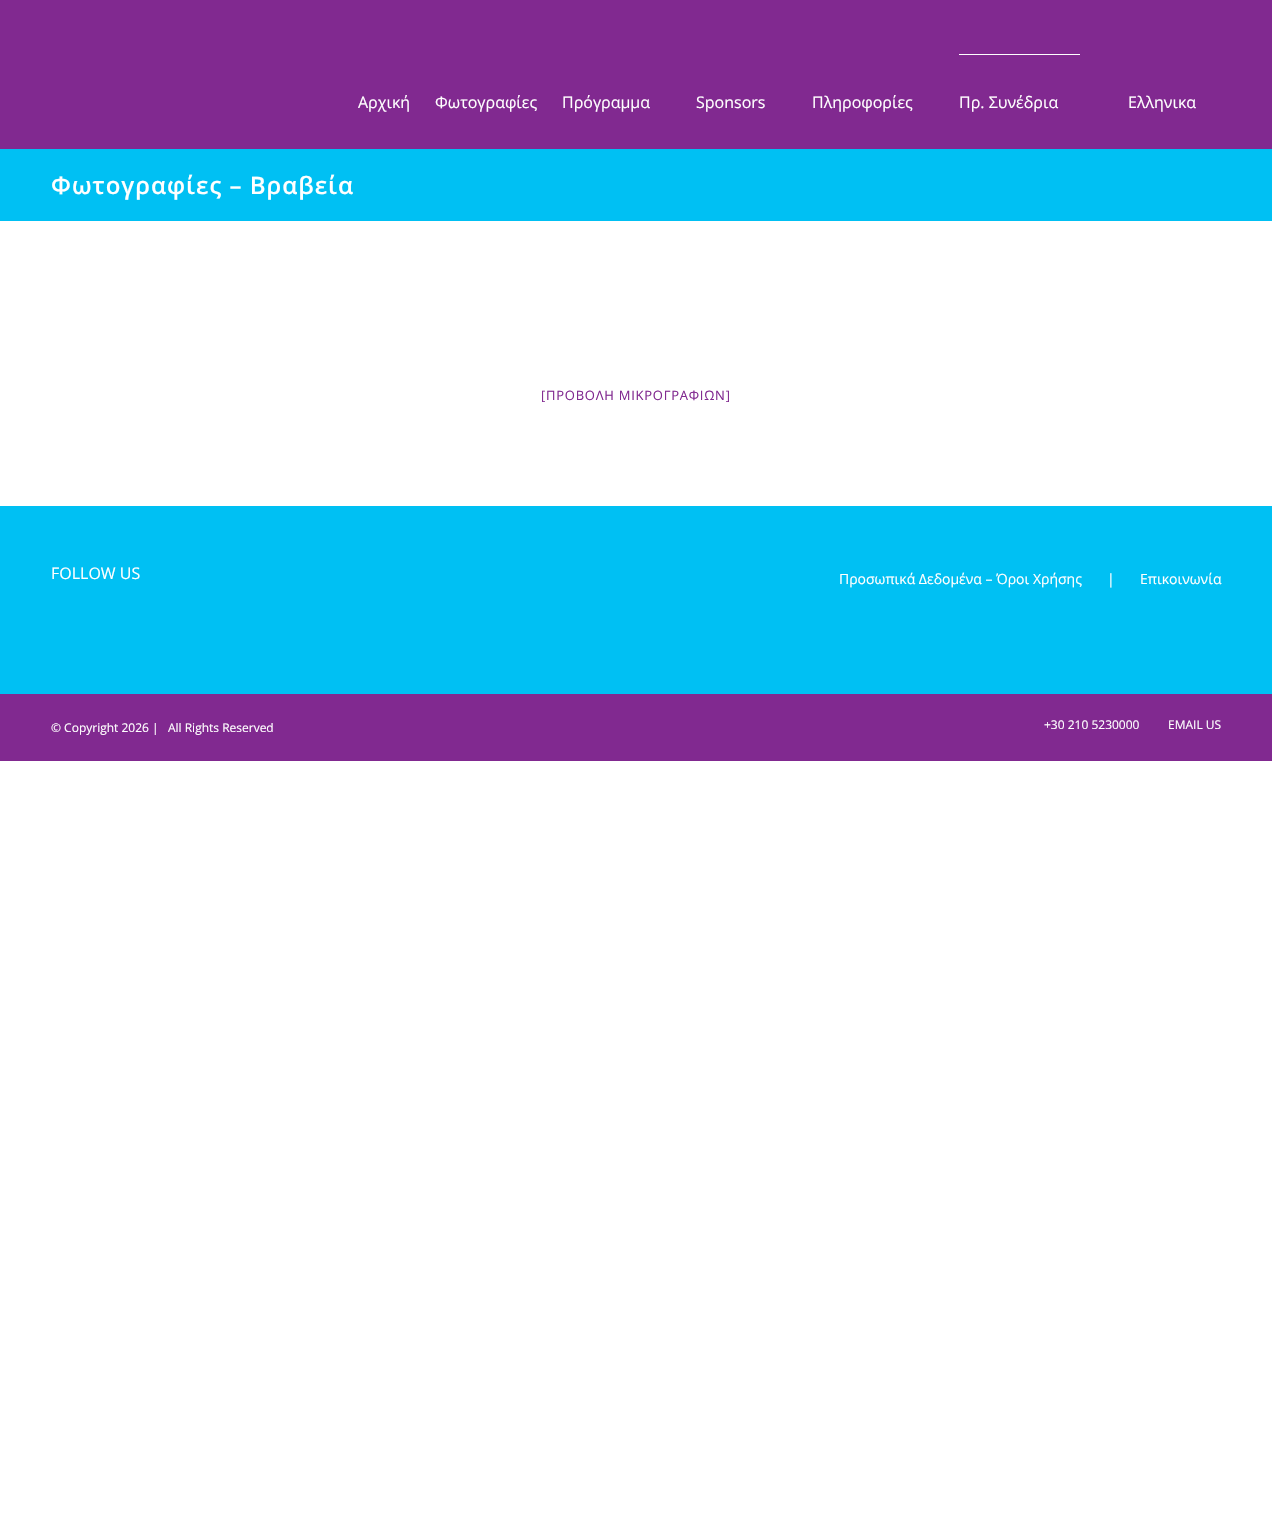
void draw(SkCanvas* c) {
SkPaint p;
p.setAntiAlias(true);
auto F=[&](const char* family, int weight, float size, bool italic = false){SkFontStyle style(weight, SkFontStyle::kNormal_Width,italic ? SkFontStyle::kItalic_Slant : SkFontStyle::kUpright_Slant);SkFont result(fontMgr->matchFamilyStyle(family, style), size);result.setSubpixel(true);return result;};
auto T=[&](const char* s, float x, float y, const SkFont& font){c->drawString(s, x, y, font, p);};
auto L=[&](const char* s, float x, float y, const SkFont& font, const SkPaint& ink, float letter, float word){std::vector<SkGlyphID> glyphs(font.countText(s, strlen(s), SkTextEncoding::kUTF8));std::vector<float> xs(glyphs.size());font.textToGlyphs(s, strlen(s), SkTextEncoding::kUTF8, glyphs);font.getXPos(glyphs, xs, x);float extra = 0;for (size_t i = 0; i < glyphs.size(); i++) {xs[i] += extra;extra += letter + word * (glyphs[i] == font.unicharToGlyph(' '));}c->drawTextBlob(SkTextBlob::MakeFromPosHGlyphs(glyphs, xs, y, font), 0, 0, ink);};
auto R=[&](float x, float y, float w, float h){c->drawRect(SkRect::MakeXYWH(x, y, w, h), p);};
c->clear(0xffffffff);
p.setColor(0xff812990);
R(0,0,1272,149);
auto f1 = F("Open Sans",400,16);
p.setColor(0xffffffff);
T("Αρχική",358,108,f1);
T("Φωτογραφίες",435,108,f1);
T("Πρόγραμμα",562,108,f1);
T("Sponsors",696,108,f1);
T("Πληροφορίες",812,108,f1);
R(959,54,121,1);
T("Πρ. Συνέδρια",959,108,f1);
T("Ελληνικα",1128,108,f1);
p.setColor(0xff00c0f3);
R(0,149,1272,72);
auto f2 = F("Open Sans",600,24);
p.setColor(0xffffffff);
L("Φωτογραφίες – Βραβεία",51,194,f2,p,1,0);
auto f3 = F("Open Sans",400,13);
p.setColor(0xff812990);
L("[ΠΡΟΒΟΛΗ ΜΙΚΡΟΓΡΑΦΙΩΝ]",541,400,f3,p,.75,0);
p.setColor(0xff00c0f3);
R(0,506,1272,188);
p.setColor(0xffffffff);
T("FOLLOW US",51,579,f1);
auto f4 = F("Open Sans",400,14);
T("Προσωπικά Δεδομένα – Όροι Χρήσης",839,584,f4);
T("|",1107,584,f4);
T("Επικοινωνία",1140,584,f4);
p.setColor(0xff812990);
R(0,694,1272,67);
auto f5 = F("Open Sans",400,12);
p.setColor(0xffffffff);
T("© Copyright 2026 |   All Rights Reserved",51,732,f5);
T("+30 210 5230000",1044,729,f5);
T("EMAIL US",1168,729,f5);
}
